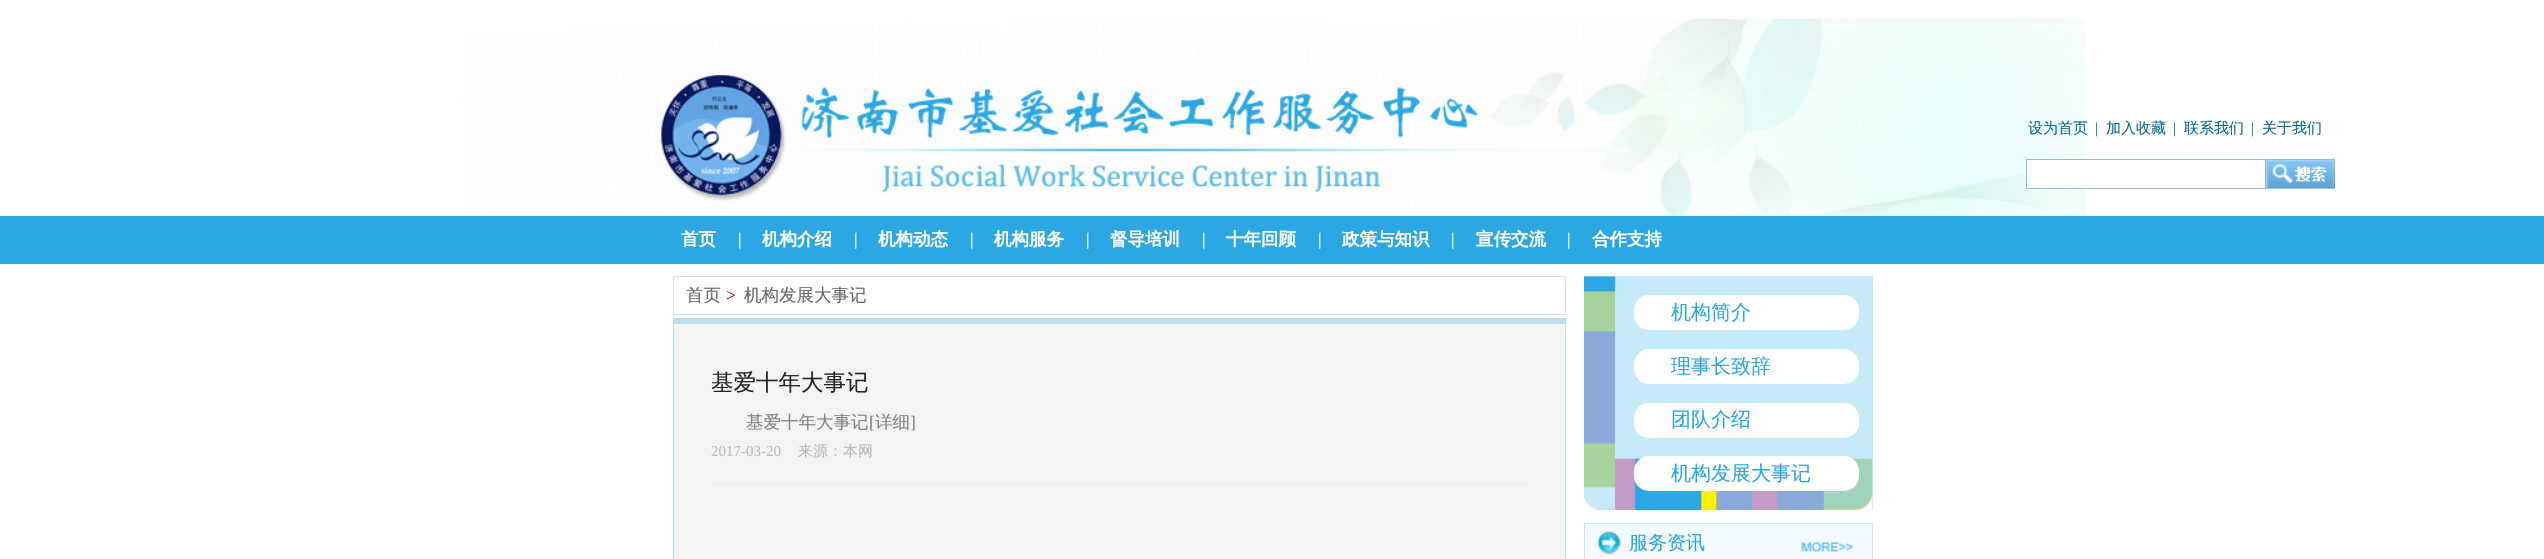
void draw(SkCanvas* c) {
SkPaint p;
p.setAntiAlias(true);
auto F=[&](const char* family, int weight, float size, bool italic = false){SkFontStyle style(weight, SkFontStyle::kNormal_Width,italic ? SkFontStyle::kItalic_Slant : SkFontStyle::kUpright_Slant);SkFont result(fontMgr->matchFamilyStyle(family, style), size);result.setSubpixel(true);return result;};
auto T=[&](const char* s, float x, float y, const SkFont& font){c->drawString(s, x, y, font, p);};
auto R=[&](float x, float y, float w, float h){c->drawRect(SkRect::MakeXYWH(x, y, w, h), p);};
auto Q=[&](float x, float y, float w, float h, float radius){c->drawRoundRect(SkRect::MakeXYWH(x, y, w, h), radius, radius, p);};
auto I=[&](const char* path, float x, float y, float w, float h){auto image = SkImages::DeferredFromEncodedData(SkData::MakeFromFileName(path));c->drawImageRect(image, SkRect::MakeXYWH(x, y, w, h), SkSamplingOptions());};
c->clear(0xffffffff);
I("1.png",462,18,1623,198);
auto f1 = F("WenQuanYi Zen Hei",500,15);
p.setColor(0xff0b6b99);
T("设为首页",2028,133,f1);
auto f2 = F("Liberation Serif",400,15);
T("|",2095,133,f2);
T("加入收藏",2106,133,f1);
T("|",2173,133,f2);
T("联系我们",2184,133,f1);
T("|",2251,133,f2);
T("关于我们",2262,133,f1);
p.setColor(0xffffffff);
R(2027,160,58,28);
p.setStroke(true);
p.setStrokeWidth(1);
p.setColor(0xff8dbbdd);
c->drawRect(SkRect::MakeXYWH(2026.5,159.5,239,29),p);
I("2.png",2266,158,69,31);
p.setStroke(false);
p.setColor(0xff2ba7e3);
R(0,216,2544,48);
auto f3 = F("WenQuanYi Zen Hei",700,17.5);
p.setColor(0xffffffff);
T("首页",681,245,f3);
auto f4 = F("Liberation Serif",400,17.5);
T("|",738,245,f4);
T("机构介绍",762,245,f3);
T("|",854,245,f4);
T("机构动态",878,245,f3);
T("|",970,245,f4);
T("机构服务",994,245,f3);
T("|",1086,245,f4);
T("督导培训",1110,245,f3);
T("|",1202,245,f4);
T("十年回顾",1226,245,f3);
T("|",1318,245,f4);
T("政策与知识",1342,245,f3);
T("|",1451,245,f4);
T("宣传交流",1476,245,f3);
T("|",1567,245,f4);
T("合作支持",1592,245,f3);
p.setStroke(true);
p.setColor(0xffd3e2e9);
c->drawRect(SkRect::MakeXYWH(673.5,276.5,892,38),p);
auto f5 = F("WenQuanYi Zen Hei",500,17.5);
p.setStroke(false);
p.setColor(0xff666666);
T("首页",686,301,f5);
p.setColor(0xff891f1f);
T(">",726,301,f4);
p.setColor(0xff666666);
T("机构发展大事记",744,301,f5);
p.setColor(0xfff5f4f4);
R(674,324,891,235);
p.setColor(0xffbadfee);
R(673,318,893,6);
R(1565,318,1,241);
R(673,318,1,241);
p.setColor(0xffebebeb);
R(711,484,817,1);
auto f6 = F("WenQuanYi Zen Hei",500,22.5);
p.setColor(0xff252525);
T("基爱十年大事记",711,390,f6);
p.setColor(0xff808080);
T("基爱十年大事记",746,428,f5);
T("[",869,428,f4);
T("详细",875,428,f5);
T("]",910,428,f4);
p.setColor(0xffb9b9b9);
T("2017-03-20",711,456,f2);
T("来源：本网",798,456,f1);
p.setColor(0xffc5ebf8);
R(1584,276,289,234);
I("3.png",1583,276,290,234);
p.setColor(0xffffffff);
Q(1634,295,225,35,15);
auto f7 = F("WenQuanYi Zen Hei",500,20);
p.setColor(0xff2ba7e3);
T("机构简介",1671,319,f7);
p.setColor(0xffffffff);
Q(1634,349,225,35,15);
p.setColor(0xff2ba7e3);
T("理事长致辞",1671,373,f7);
p.setColor(0xffffffff);
Q(1634,403,225,35,15);
p.setColor(0xff2ba7e3);
T("团队介绍",1671,426,f7);
p.setColor(0xffffffff);
Q(1634,456,225,35,15);
p.setColor(0xff2ba7e3);
T("机构发展大事记",1671,480,f7);
I("4.png",1585,524,287,35);
p.setStroke(true);
p.setColor(0xffd3e2e9);
c->drawRect(SkRect::MakeXYWH(1584.5,523.5,288,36),p);
I("5.png",1597,531,25,24);
auto f8 = F("WenQuanYi Zen Hei",500,19);
p.setStroke(false);
p.setColor(0xff2ba7e3);
T("服务资讯",1629,549,f8);
I("6.png",1801,542,52,10);
}
